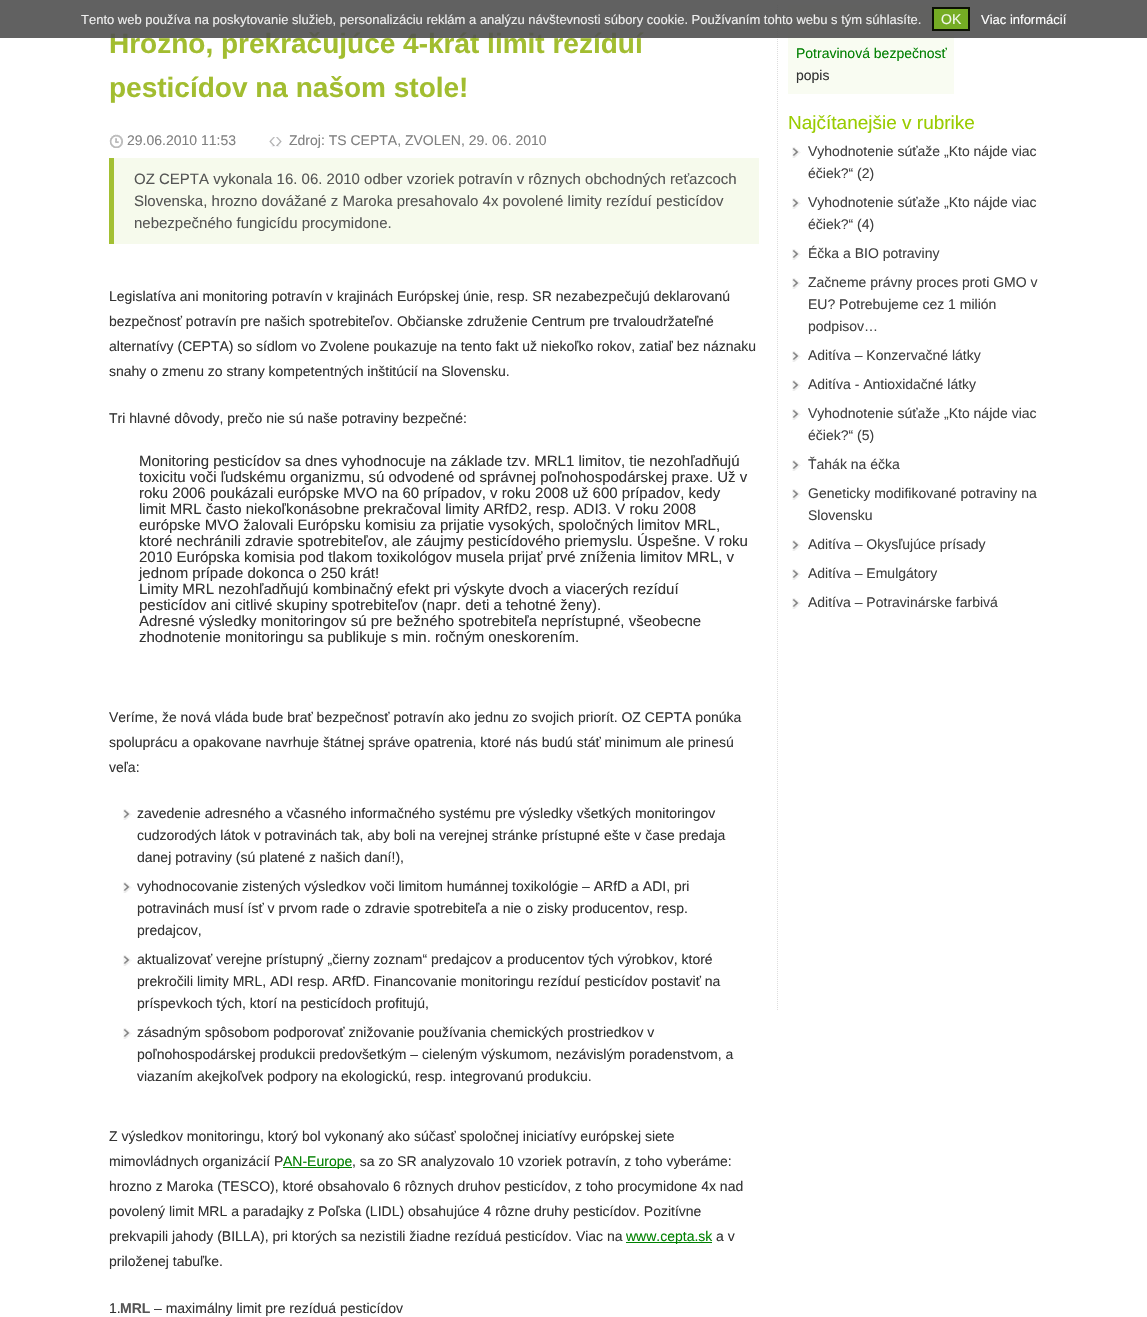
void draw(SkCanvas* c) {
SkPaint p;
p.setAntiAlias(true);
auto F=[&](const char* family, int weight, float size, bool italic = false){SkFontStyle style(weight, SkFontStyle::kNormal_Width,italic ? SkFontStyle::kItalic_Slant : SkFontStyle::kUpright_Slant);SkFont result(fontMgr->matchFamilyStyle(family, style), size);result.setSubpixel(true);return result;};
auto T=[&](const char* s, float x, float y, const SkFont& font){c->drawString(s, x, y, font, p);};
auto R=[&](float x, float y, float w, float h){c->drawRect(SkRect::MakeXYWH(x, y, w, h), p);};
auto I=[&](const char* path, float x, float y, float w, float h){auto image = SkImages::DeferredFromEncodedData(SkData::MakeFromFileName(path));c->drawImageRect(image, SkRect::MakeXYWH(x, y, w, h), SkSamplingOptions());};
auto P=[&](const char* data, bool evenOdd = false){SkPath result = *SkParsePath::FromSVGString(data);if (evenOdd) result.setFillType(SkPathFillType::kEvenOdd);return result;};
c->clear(0xffffffff);
auto f1 = F("Liberation Sans",700,28);
p.setColor(0xffa2bd30);
T("Hrozno, prekračujúce 4-krát limit rezíduí",109,53,f1);
p.setStroke(true);
p.setStrokeWidth(1);
p.setColor(0xffdddddd);
p.setPathEffect(SkDashPathEffect::Make({{1,1}}, 0));
c->drawPath(P("M777.5 5v1005"),p);
p.setPathEffect(nullptr);
p.setStroke(false);
p.setColor(0xfff9fcf2);
R(788,5,166,89);
p.setColor(0xe6505050);
R(0,0,1147,38);
auto f2 = F("Liberation Sans",400,13);
p.setColor(0xffefefef);
T("Tento web používa na poskytovanie služieb, personalizáciu reklám a analýzu návštevnosti súbory cookie. Používaním tohto webu s tým súhlasíte.",81,24,f2);
p.setColor(0xff75ac24);
c->drawRect(SkRect::MakeXYWH(933,8,36,22),p);
p.setStroke(true);
p.setStrokeWidth(2);
p.setColor(0xff0c1104);
c->drawRect(SkRect::MakeXYWH(933,8,36,22),p);
auto f3 = F("Liberation Sans",400,14);
p.setStroke(false);
p.setColor(0xfff1f7e9);
T("OK",941,24,f3);
p.setColor(0xffffffff);
T("Viac informácií",981,24,f2);
p.setColor(0xffa2bd30);
T("pesticídov na našom stole!",109,97,f1);
I("1.png",109,134,14,14);
p.setColor(0xff808080);
T("29.06.2010 11:53",127,145,f3);
I("2.png",269,137,13,10);
T("Zdroj: TS CEPTA, ZVOLEN, 29. 06. 2010",289,145,f3);
p.setColor(0xfff6faec);
R(114,158,645,86);
p.setColor(0xffa3c033);
R(109,158,5,86);
auto f4 = F("Liberation Sans",400,15);
p.setColor(0xff555555);
T("OZ CEPTA vykonala 16. 06. 2010 odber vzoriek potravín v rôznych obchodných reťazcoch",134,184,f4);
T("Slovenska, hrozno dovážané z Maroka presahovalo 4x povolené limity rezíduí pesticídov",134,206,f4);
T("nebezpečného fungicídu procymidone.",134,228,f4);
p.setColor(0xff333333);
T("Legislatíva ani monitoring potravín v krajinách Európskej únie, resp. SR nezabezpečujú deklarovanú",109,301,f3);
T("bezpečnosť potravín pre našich spotrebiteľov. Občianske združenie Centrum pre trvaloudržateľné",109,326,f3);
T("alternatívy (CEPTA) so sídlom vo Zvolene poukazuje na tento fakt už niekoľko rokov, zatiaľ bez náznaku",109,351,f3);
T("snahy o zmenu zo strany kompetentných inštitúcií na Slovensku.",109,376,f3);
T("Tri hlavné dôvody, prečo nie sú naše potraviny bezpečné:",109,423,f3);
T("Monitoring pesticídov sa dnes vyhodnocuje na základe tzv. MRL1 limitov, tie nezohľadňujú",139,466,f4);
T("toxicitu voči ľudskému organizmu, sú odvodené od správnej poľnohospodárskej praxe. Už v",139,482,f4);
T("roku 2006 poukázali európske MVO na 60 prípadov, v roku 2008 už 600 prípadov, kedy",139,498,f4);
T("limit MRL často niekoľkonásobne prekračoval limity ARfD2, resp. ADI3. V roku 2008",139,514,f4);
T("európske MVO žalovali Európsku komisiu za prijatie vysokých, spoločných limitov MRL,",139,530,f4);
T("ktoré nechránili zdravie spotrebiteľov, ale záujmy pesticídového priemyslu. Úspešne. V roku",139,546,f4);
T("2010 Európska komisia pod tlakom toxikológov musela prijať prvé zníženia limitov MRL, v",139,562,f4);
T("jednom prípade dokonca o 250 krát!",139,578,f4);
T("Limity MRL nezohľadňujú kombinačný efekt pri výskyte dvoch a viacerých rezíduí",139,594,f4);
T("pesticídov ani citlivé skupiny spotrebiteľov (napr. deti a tehotné ženy).",139,610,f4);
T("Adresné výsledky monitoringov sú pre bežného spotrebiteľa neprístupné, všeobecne",139,626,f4);
T("zhodnotenie monitoringu sa publikuje s min. ročným oneskorením.",139,642,f4);
T("Veríme, že nová vláda bude brať bezpečnosť potravín ako jednu zo svojich priorít. OZ CEPTA ponúka",109,722,f3);
T("spoluprácu a opakovane navrhuje štátnej správe opatrenia, ktoré nás budú stáť minimum ale prinesú",109,747,f3);
T("veľa:",109,772,f3);
I("3.png",123,809,9,11);
T("zavedenie adresného a včasného informačného systému pre výsledky všetkých monitoringov",137,818,f3);
T("cudzorodých látok v potravinách tak, aby boli na verejnej stránke prístupné ešte v čase predaja",137,840,f3);
T("danej potraviny (sú platené z našich daní!),",137,862,f3);
I("3.png",123,882,9,11);
T("vyhodnocovanie zistených výsledkov voči limitom humánnej toxikológie – ARfD a ADI, pri",137,891,f3);
T("potravinách musí ísť v prvom rade o zdravie spotrebiteľa a nie o zisky producentov, resp.",137,913,f3);
T("predajcov,",137,935,f3);
I("3.png",123,955,9,11);
T("aktualizovať verejne prístupný „čierny zoznam“ predajcov a producentov tých výrobkov, ktoré",137,964,f3);
T("prekročili limity MRL, ADI resp. ARfD. Financovanie monitoringu rezíduí pesticídov postaviť na",137,986,f3);
T("príspevkoch tých, ktorí na pesticídoch profitujú,",137,1008,f3);
I("3.png",123,1028,9,11);
T("zásadným spôsobom podporovať znižovanie používania chemických prostriedkov v",137,1037,f3);
T("poľnohospodárskej produkcii predovšetkým – cieleným výskumom, nezávislým poradenstvom, a",137,1059,f3);
T("viazaním akejkoľvek podpory na ekologickú, resp. integrovanú produkciu.",137,1081,f3);
T("Z výsledkov monitoringu, ktorý bol vykonaný ako súčasť spoločnej iniciatívy európskej siete",109,1141,f3);
T("mimovládnych organizácií P",109,1166,f3);
p.setColor(0xff008000);
R(283,1167,69,1);
T("AN-Europe",283,1166,f3);
p.setColor(0xff333333);
T(", sa zo SR analyzovalo 10 vzoriek potravín, z toho vyberáme:",352,1166,f3);
T("hrozno z Maroka (TESCO), ktoré obsahovalo 6 rôznych druhov pesticídov, z toho procymidone 4x nad",109,1191,f3);
T("povolený limit MRL a paradajky z Poľska (LIDL) obsahujúce 4 rôzne druhy pesticídov. Pozitívne",109,1216,f3);
T("prekvapili jahody (BILLA), pri ktorých sa nezistili žiadne rezíduá pesticídov. Viac na",109,1241,f3);
p.setColor(0xff008000);
R(626,1242,86,1);
T("www.cepta.sk",626,1241,f3);
p.setColor(0xff333333);
T("a v",716,1241,f3);
T("priloženej tabuľke.",109,1266,f3);
T("1.",109,1313,f3);
auto f5 = F("Liberation Sans",700,14);
p.setColor(0xff555555);
T("MRL",120,1313,f5);
p.setColor(0xff333333);
T("– maximálny limit pre rezíduá pesticídov",154,1313,f3);
p.setColor(0xff008000);
T("Potravinová bezpečnosť",796,58,f3);
p.setColor(0xff333333);
T("popis",796,80,f3);
auto f6 = F("Liberation Sans",400,19);
p.setColor(0xff99cc00);
T("Najčítanejšie v rubrike",788,129,f6);
I("3.png",792,147,9,11);
p.setColor(0xff404040);
T("Vyhodnotenie súťaže „Kto nájde viac",808,156,f3);
T("éčiek?“ (2)",808,178,f3);
I("3.png",792,198,9,11);
T("Vyhodnotenie súťaže „Kto nájde viac",808,207,f3);
T("éčiek?“ (4)",808,229,f3);
I("3.png",792,249,9,11);
T("Éčka a BIO potraviny",808,258,f3);
I("3.png",792,278,9,11);
T("Začneme právny proces proti GMO v",808,287,f3);
T("EU? Potrebujeme cez 1 milión",808,309,f3);
T("podpisov…",808,331,f3);
I("3.png",792,351,9,11);
T("Aditíva – Konzervačné látky",808,360,f3);
I("3.png",792,380,9,11);
T("Aditíva - Antioxidačné látky",808,389,f3);
I("3.png",792,409,9,11);
T("Vyhodnotenie súťaže „Kto nájde viac",808,418,f3);
T("éčiek?“ (5)",808,440,f3);
I("3.png",792,460,9,11);
T("Ťahák na éčka",808,469,f3);
I("3.png",792,489,9,11);
T("Geneticky modifikované potraviny na",808,498,f3);
T("Slovensku",808,520,f3);
I("3.png",792,540,9,11);
T("Aditíva – Okysľujúce prísady",808,549,f3);
I("3.png",792,569,9,11);
T("Aditíva – Emulgátory",808,578,f3);
I("3.png",792,598,9,11);
T("Aditíva – Potravinárske farbivá",808,607,f3);
}
